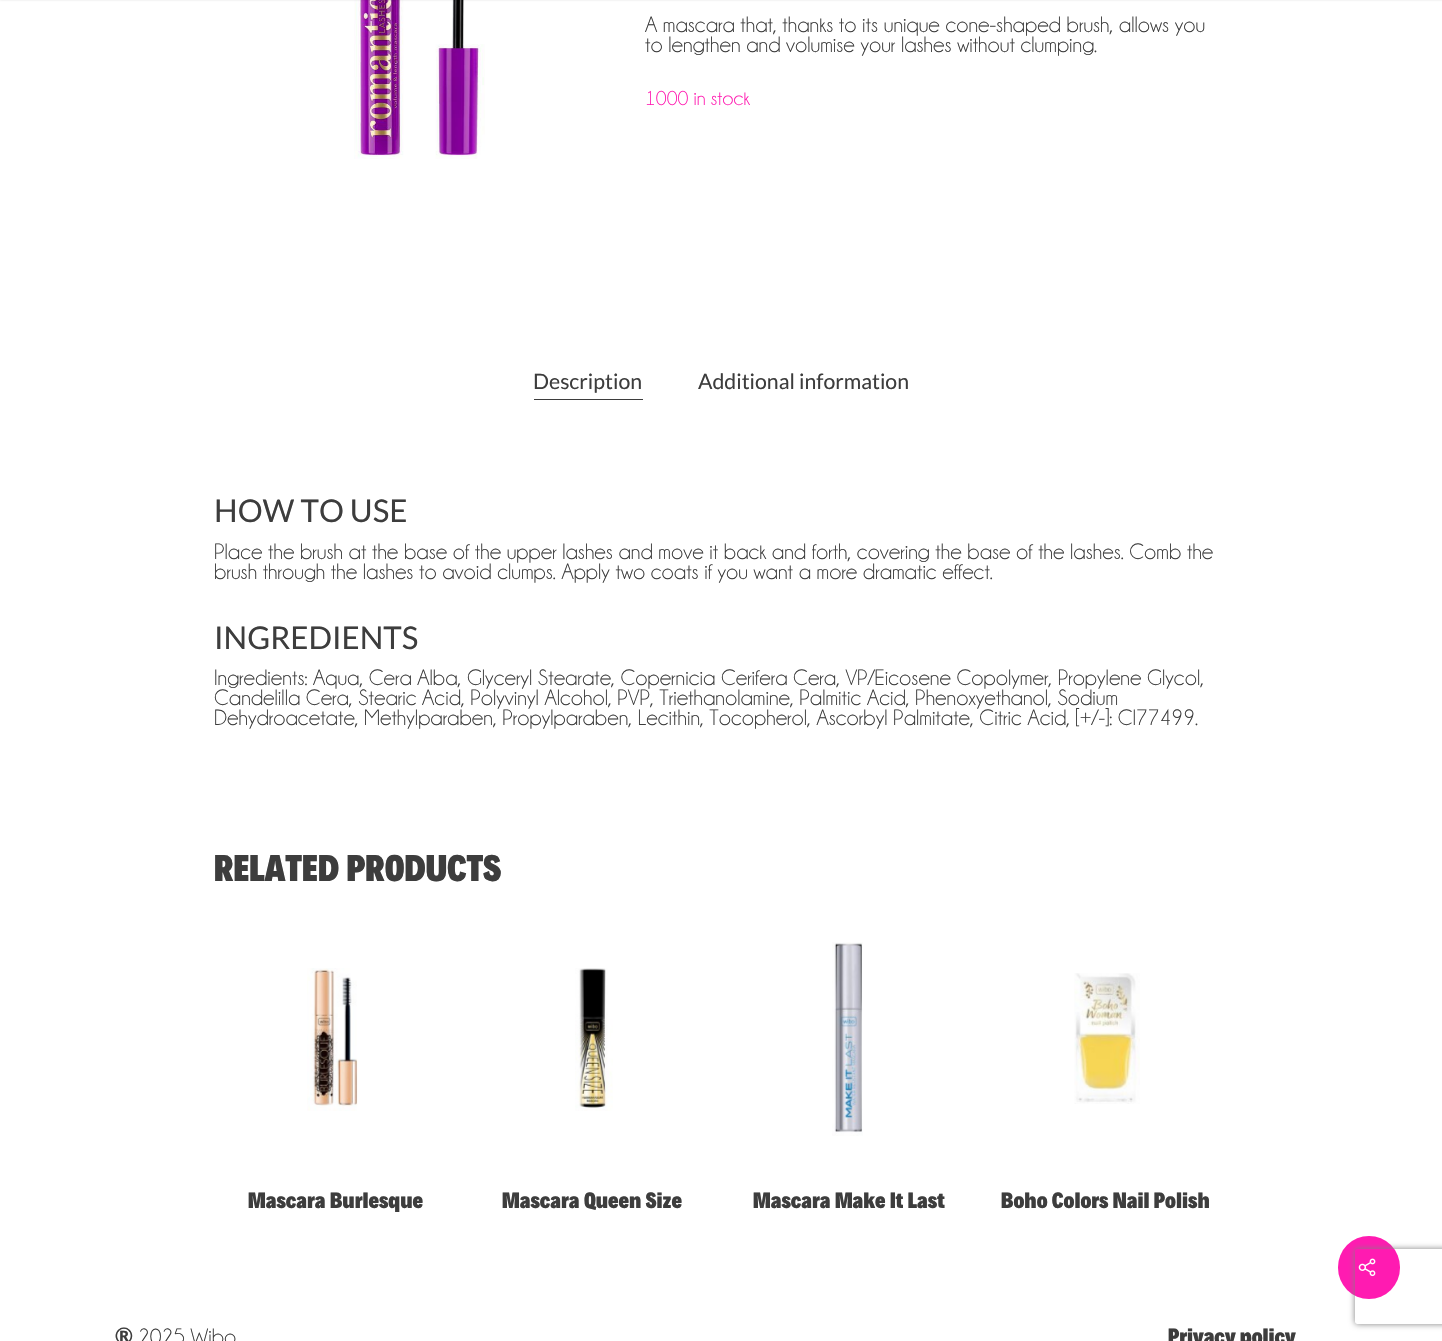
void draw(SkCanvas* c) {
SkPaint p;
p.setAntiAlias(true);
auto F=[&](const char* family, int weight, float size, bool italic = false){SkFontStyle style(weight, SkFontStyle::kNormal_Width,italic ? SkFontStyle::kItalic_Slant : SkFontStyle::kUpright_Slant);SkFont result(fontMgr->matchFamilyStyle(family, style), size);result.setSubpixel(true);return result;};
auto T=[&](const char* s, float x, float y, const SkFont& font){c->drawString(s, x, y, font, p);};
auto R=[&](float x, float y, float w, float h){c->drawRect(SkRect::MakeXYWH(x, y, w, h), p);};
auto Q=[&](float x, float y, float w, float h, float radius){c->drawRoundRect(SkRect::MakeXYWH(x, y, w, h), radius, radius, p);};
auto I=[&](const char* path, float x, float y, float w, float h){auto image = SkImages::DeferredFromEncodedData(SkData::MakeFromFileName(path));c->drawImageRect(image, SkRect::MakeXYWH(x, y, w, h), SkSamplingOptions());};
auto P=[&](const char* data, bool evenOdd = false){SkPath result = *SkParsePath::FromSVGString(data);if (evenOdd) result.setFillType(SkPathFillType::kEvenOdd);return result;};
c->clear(0xffffffff);
I("1.png",354,0,131,159);
p.setColor(0x24000000);
p.setMaskFilter(SkMaskFilter::MakeBlur(kNormal_SkBlurStyle, 1));
c->drawRect(SkRect::MakeXYWH(0,-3,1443,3),p);
p.setMaskFilter(nullptr);
auto f1 = F("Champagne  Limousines",400,22.5);
p.setColor(0xff3d3d3d);
T("A mascara that, thanks to its unique cone-shaped brush, allows you",645,32,f1);
T("to lengthen and volumise your lashes without clumping.",645,52,f1);
auto f2 = F("Champagne  Limousines",400,20.75);
p.setColor(0xffff1bb1);
T("1000 in stock",645,105,f2);
p.setColor(0xff3d3d3d);
R(534,399,109,1);
auto f3 = F("Lato",400,21.25);
T("Description",533,389,f3);
T("Additional information",698,389,f3);
auto f4 = F("Lato",400,31.25);
T("HOW TO USE",214,522,f4);
T("Place the brush at the base of the upper lashes and move it back and forth, covering the base of the lashes. Comb the",214,559,f1);
T("brush through the lashes to avoid clumps. Apply two coats if you want a more dramatic effect.",214,579,f1);
T("INGREDIENTS",214,649,f4);
T("Ingredients: Aqua, Cera Alba, Glyceryl Stearate, Copernicia Cerifera Cera, VP/Eicosene Copolymer, Propylene Glycol,",214,685,f1);
T("Candelilla Cera, Stearic Acid, Polyvinyl Alcohol, PVP, Triethanolamine, Palmitic Acid, Phenoxyethanol, Sodium",214,705,f1);
T("Dehydroacetate, Methylparaben, Propylparaben, Lecithin, Tocopherol, Ascorbyl Palmitate, Citric Acid, [+/-]: CI77499.",214,725,f1);
auto f5 = F("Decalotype",900,37.5);
T("RELATED PRODUCTS",214,881,f5);
I("2.png",307,968,51,143);
auto f6 = F("Decalotype",900,22.5);
T("Mascara Burlesque",248,1208,f6);
I("3.png",575,968,38,143);
T("Mascara Queen Size",502,1208,f6);
I("4.png",832,942,31,194);
T("Mascara Make It Last",753,1208,f6);
I("5.png",1074,973,66,131);
T("Boho Colors Nail Polish",1001,1208,f6);
auto f7 = F("Lato",700,22.5);
T("®",115,1344,f7);
T("2025 Wibo",138,1344,f1);
T("Privacy policy",1168,1344,f6);
p.setColor(0xffff1bb1);
Q(1338,1236,62,63,31);
I("6.png",1358,1258,18,19);
c->save();
c->clipPath(P("M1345 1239h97v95h-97zm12.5 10h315c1.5 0 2.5 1 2.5 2.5v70c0 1.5-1 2.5-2.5 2.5h-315c-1.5 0-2.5-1-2.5-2.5v-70c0-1.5 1-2.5 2.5-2.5z",true),true);
p.setColor(0xff808080);
p.setMaskFilter(SkMaskFilter::MakeBlur(kNormal_SkBlurStyle, 3));
c->drawRoundRect(SkRect::MakeXYWH(1355,1249,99,75),2.5,2.5,p);
p.setMaskFilter(nullptr);
c->restore();
}
